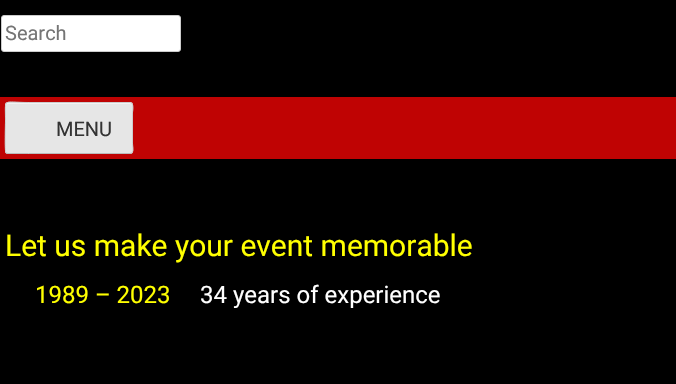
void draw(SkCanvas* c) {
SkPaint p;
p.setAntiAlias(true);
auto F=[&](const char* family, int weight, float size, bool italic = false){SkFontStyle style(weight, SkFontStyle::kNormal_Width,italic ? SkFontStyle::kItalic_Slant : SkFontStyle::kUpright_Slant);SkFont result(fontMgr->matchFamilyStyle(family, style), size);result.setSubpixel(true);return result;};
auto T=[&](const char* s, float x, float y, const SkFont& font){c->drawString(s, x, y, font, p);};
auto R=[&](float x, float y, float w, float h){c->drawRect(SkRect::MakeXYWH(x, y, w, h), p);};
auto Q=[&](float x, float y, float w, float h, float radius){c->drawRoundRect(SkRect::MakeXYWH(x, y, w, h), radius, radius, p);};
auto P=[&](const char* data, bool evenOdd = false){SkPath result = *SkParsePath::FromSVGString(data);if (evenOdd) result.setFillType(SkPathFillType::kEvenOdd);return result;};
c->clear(0xff000000);
p.setColor(0xffffffff);
c->drawRoundRect(SkRect::MakeXYWH(1.5,15.5,179,36),2.5,2.5,p);
p.setStroke(true);
p.setStrokeWidth(1);
p.setColor(0xffcccccc);
c->drawRoundRect(SkRect::MakeXYWH(1.5,15.5,179,36),2.5,2.5,p);
auto f1 = F("Roboto",400,20);
p.setStroke(false);
p.setColor(0xff757575);
T("Search",5,40,f1);
p.setColor(0xffbf0303);
R(0,97,676,62);
p.setColor(0xffe6e6e6);
Q(5,102,128,52,3);
p.setColor(0xfff3f3f3);
c->drawPath(P("M8 104h122l2 1v1l-1-2l-1-1h-123c-1 1-1 2-1 3c0-1 1-2 2-2z"),p);
p.setStroke(true);
p.setColor(0xffbbbbbb);
c->drawPath(P("M132 153l-2 .5h-101.5h-20.5l-2-.5"),p);
p.setColor(0xffcccccc);
c->drawPath(P("M6 153c-1.5-2-.5-28.5-.5-32.5c0-23.5-3.5-18 23-18h101.5c4.5 0 2.5 9.5 2.5 10v31c0 3 1.5 7-.5 9.5"),p);
p.setStroke(false);
p.setColor(0xff333333);
T("MENU",56,136,f1);
auto f2 = F("Roboto",400,30);
p.setColor(0xffffff00);
T("Let us make your event memorable",5,256,f2);
auto f3 = F("Roboto",400,24);
T("1989 – 2023",35,303,f3);
p.setColor(0xffffffff);
T("34 years of experience",200,303,f3);
}
